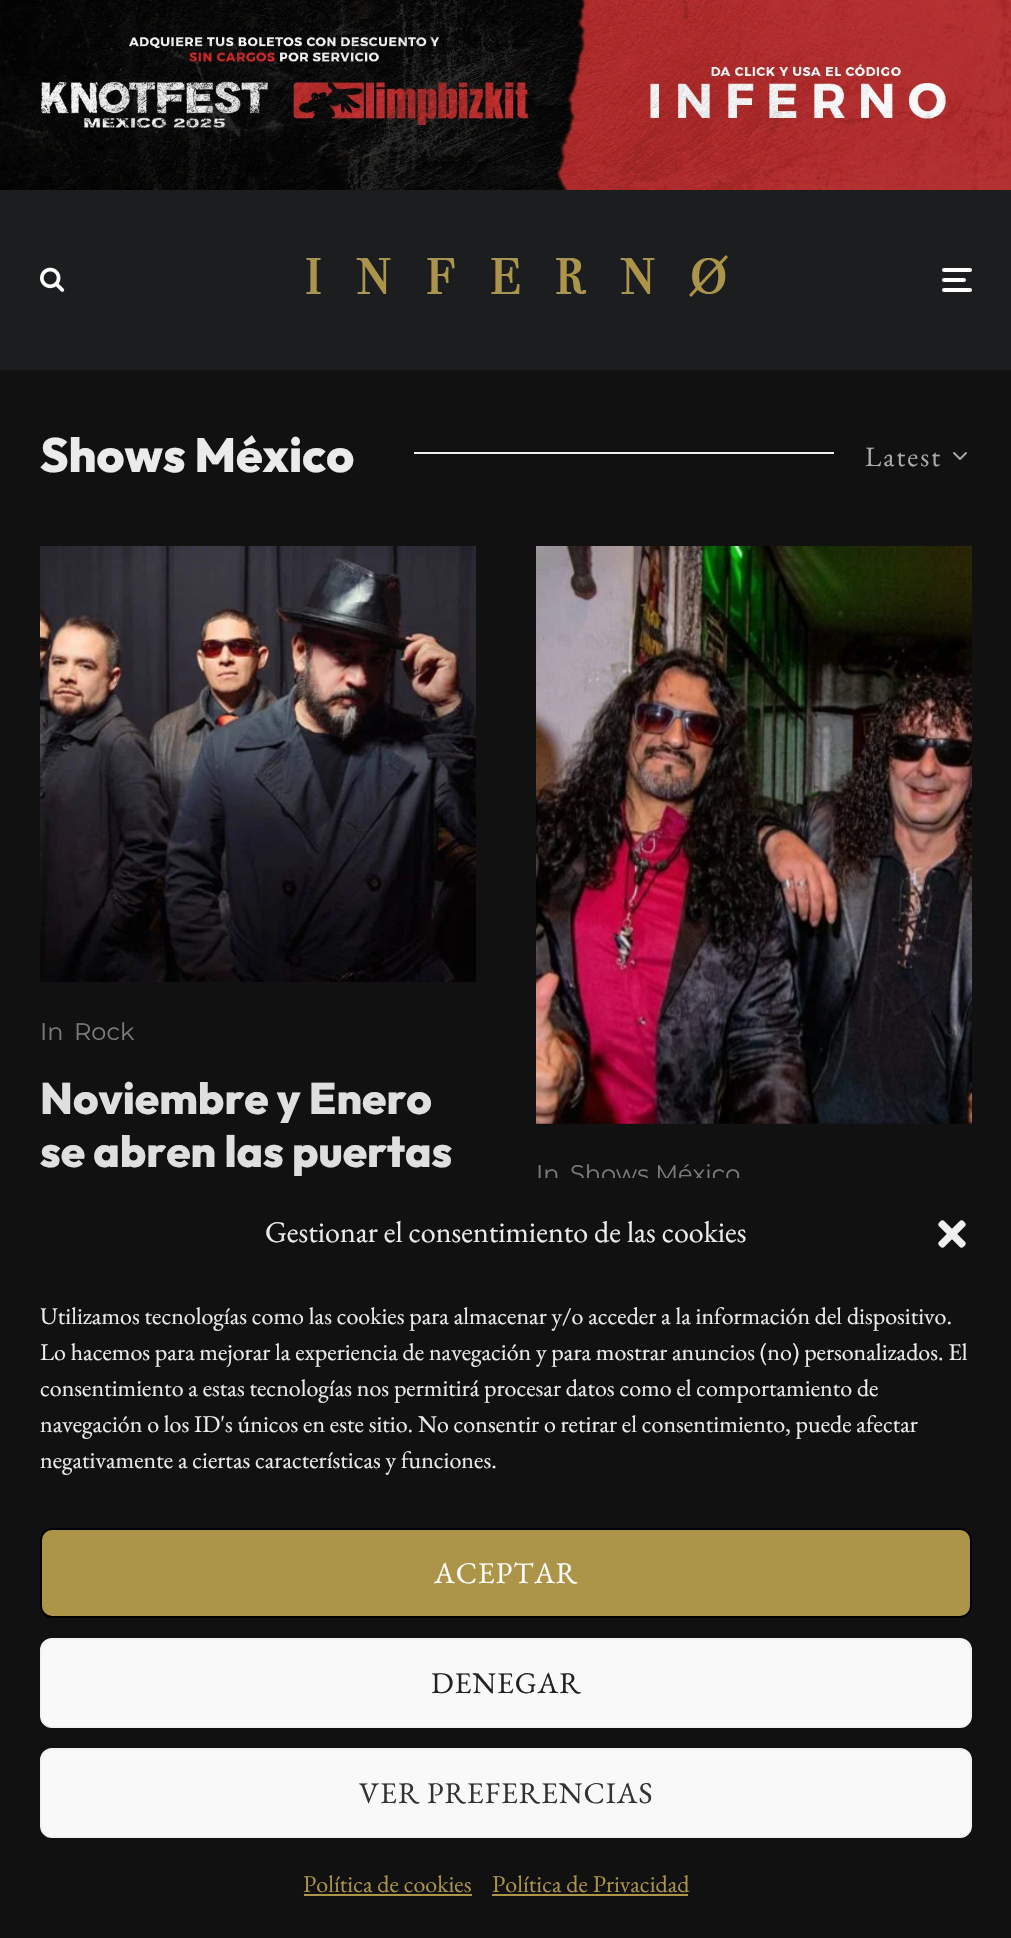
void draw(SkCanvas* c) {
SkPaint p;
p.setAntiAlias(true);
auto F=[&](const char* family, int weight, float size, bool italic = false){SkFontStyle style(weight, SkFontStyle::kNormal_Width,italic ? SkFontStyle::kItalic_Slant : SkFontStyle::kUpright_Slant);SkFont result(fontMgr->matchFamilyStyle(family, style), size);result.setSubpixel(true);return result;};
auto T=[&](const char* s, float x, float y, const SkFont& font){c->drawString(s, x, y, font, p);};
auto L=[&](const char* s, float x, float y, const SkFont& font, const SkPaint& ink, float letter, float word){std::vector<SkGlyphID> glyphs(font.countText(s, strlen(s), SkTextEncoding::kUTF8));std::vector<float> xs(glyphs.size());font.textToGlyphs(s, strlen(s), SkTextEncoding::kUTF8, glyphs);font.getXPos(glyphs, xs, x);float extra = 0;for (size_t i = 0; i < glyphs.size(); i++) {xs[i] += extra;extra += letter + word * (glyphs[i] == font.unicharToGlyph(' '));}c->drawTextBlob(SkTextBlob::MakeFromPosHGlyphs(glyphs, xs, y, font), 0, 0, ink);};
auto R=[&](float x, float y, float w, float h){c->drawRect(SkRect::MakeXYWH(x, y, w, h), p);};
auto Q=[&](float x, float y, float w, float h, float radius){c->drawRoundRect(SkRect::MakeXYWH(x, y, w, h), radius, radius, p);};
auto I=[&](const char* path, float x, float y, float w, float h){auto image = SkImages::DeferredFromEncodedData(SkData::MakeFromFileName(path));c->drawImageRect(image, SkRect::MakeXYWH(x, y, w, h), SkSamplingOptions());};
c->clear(0xffffffff);
I("1.png",0,0,1011,190);
p.setColor(0xff1c1d1e);
R(0,190,1011,180);
I("2.png",40,267,25,25);
I("3.png",306,255,422,42);
p.setColor(0xffffffff);
Q(942,278,24,4,2);
Q(942,268,30,4,2);
Q(942,288,30,4,2);
p.setColor(0xff111111);
R(0,370,1011,1568);
auto f1 = F("Outfit",800,48);
p.setColor(0xffebebeb);
T("Shows México",40,472,f1);
p.setColor(0xffeeeeee);
R(414,452,420,2);
auto f2 = F("EB Garamond",400,28);
p.setColor(0xffaaaaaa);
L("Latest",865,466,f2,p,2,0);
I("4.png",953,452,14,8);
I("5.png",40,546,436,436);
auto f3 = F("Montserrat",400,24);
p.setColor(0xff7b7b7b);
T("In",40,1040,f3);
T("Rock",74,1040,f3);
auto f4 = F("Outfit",800,44);
p.setColor(0xffdfdfdf);
T("Noviembre y Enero",40,1114,f4);
T("se abren las puertas",40,1167,f4);
I("6.png",536,546,436,578);
p.setColor(0xff7b7b7b);
T("In",536,1182,f3);
T("Shows México",570,1182,f3);
p.setColor(0xff111111);
Q(0,1178,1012,760,24);
auto f5 = F("EB Garamond",400,30);
p.setColor(0xffebebeb);
T("Gestionar el consentimiento de las cookies",265,1242,f5);
I("7.png",938,1220,28,28);
auto f6 = F("EB Garamond",400,24);
T("Utilizamos tecnologías como las cookies para almacenar y/o acceder a la información del dispositivo.",40,1324,f6);
T("Lo hacemos para mejorar la experiencia de navegación y para mostrar anuncios (no) personalizados. El",40,1360,f6);
T("consentimiento a estas tecnologías nos permitirá procesar datos como el comportamiento de",40,1396,f6);
T("navegación o los ID's únicos en este sitio. No consentir o retirar el consentimiento, puede afectar",40,1432,f6);
T("negativamente a ciertas características y funciones.",40,1468,f6);
p.setColor(0xffac9449);
c->drawRoundRect(SkRect::MakeXYWH(41,1529,930,88),11,11,p);
p.setStroke(true);
p.setStrokeWidth(2);
p.setColor(0xff000000);
c->drawRoundRect(SkRect::MakeXYWH(41,1529,930,88),11,11,p);
p.setStroke(false);
p.setColor(0xffffffff);
L("ACEPTAR",434,1583,f5,p,.9,0);
p.setColor(0xfff9f9f9);
c->drawRoundRect(SkRect::MakeXYWH(41,1639,930,88),11,11,p);
p.setStroke(true);
p.setColor(0xfff2f2f2);
c->drawRoundRect(SkRect::MakeXYWH(41,1639,930,88),11,11,p);
p.setStroke(false);
p.setColor(0xff222222);
L("DENEGAR",431,1693,f5,p,.9,0);
p.setColor(0xfff9f9f9);
c->drawRoundRect(SkRect::MakeXYWH(41,1749,930,88),11,11,p);
p.setStroke(true);
p.setColor(0xfff2f2f2);
c->drawRoundRect(SkRect::MakeXYWH(41,1749,930,88),11,11,p);
p.setStroke(false);
p.setColor(0xff333333);
L("VER PREFERENCIAS",359,1803,f5,p,.9,0);
p.setColor(0xffac9449);
T("Política de cookies",303,1892,f6);
R(304,1894,168,2);
T("Política de Privacidad",492,1892,f6);
R(492,1894,196,2);
}
